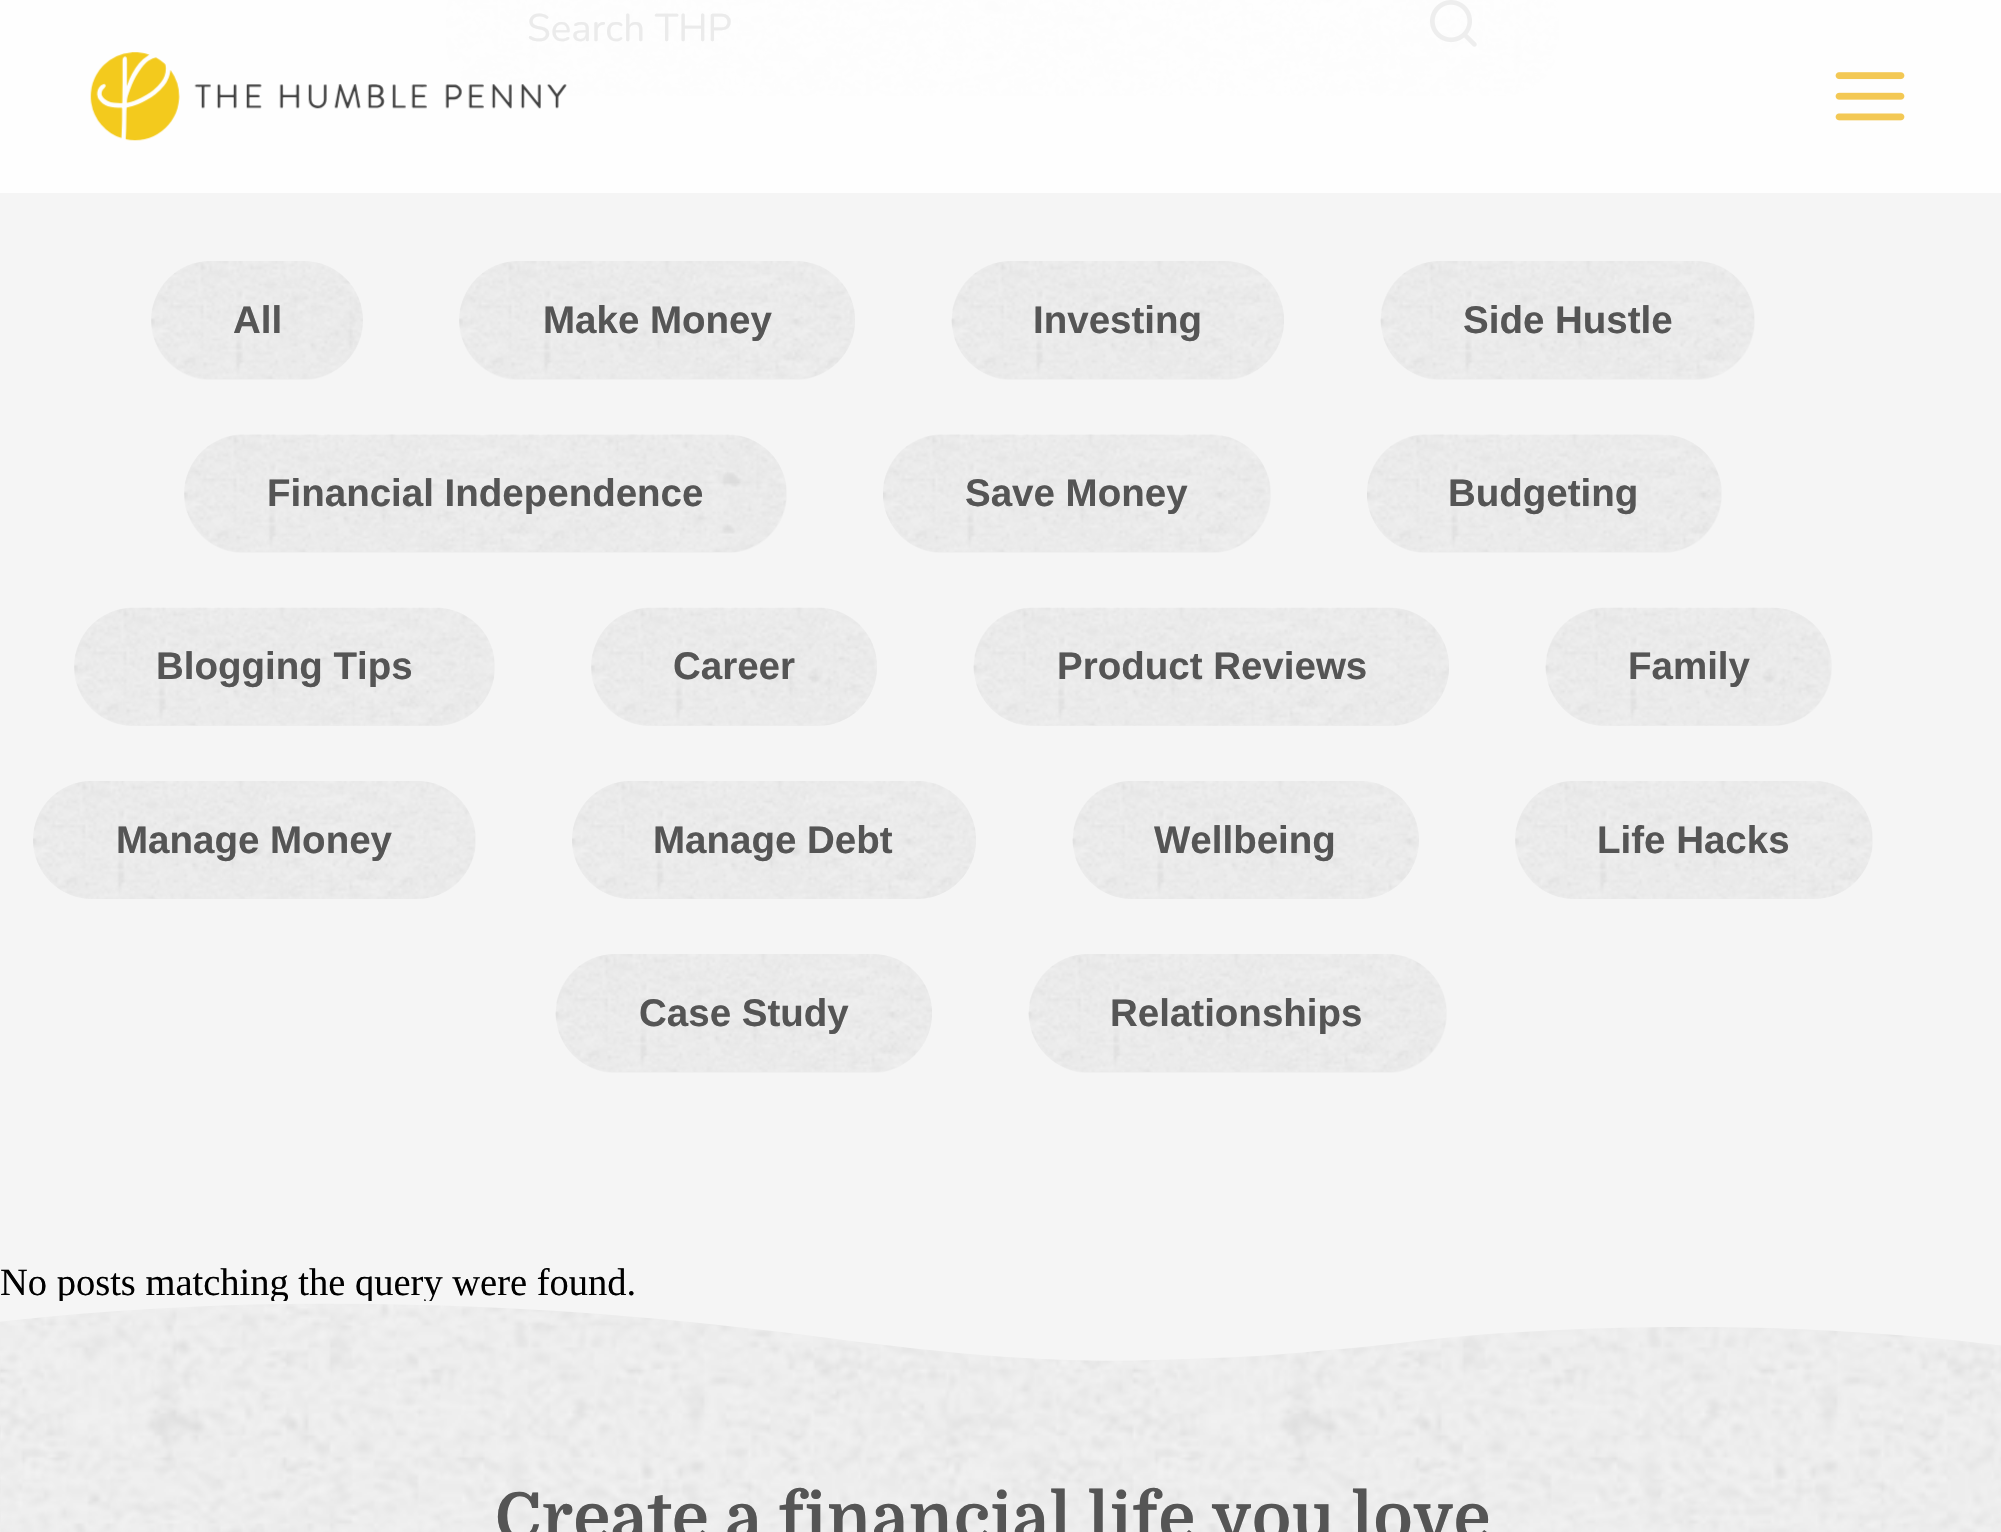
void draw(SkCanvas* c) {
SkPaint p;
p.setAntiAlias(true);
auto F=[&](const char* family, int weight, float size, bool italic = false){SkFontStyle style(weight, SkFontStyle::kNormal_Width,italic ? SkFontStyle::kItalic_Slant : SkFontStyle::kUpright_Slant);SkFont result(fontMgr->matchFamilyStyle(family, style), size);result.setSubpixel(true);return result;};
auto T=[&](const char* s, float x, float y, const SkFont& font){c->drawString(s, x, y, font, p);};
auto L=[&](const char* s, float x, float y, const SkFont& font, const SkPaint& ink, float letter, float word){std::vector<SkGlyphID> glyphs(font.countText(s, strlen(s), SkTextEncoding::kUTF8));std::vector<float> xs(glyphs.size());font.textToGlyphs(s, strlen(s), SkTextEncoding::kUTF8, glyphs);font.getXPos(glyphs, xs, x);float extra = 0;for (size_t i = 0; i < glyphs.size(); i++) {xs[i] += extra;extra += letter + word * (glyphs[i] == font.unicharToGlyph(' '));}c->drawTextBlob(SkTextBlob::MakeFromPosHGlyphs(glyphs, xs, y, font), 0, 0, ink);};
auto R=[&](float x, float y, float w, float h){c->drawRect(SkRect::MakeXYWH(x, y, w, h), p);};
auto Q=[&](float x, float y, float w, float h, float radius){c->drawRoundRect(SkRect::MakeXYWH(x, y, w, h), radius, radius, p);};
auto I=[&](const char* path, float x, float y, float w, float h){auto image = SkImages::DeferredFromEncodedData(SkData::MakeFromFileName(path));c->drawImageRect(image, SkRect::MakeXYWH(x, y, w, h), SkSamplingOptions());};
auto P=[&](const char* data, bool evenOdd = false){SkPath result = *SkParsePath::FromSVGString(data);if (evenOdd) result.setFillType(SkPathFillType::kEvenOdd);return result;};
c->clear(0xfff5f5f5);
p.setColor(0xfffefefe);
R(0,0,2001,193);
I("1.png",446,0,1113,96);
auto f1 = F("Nunito",400,38.5);
p.setColor(0xffebebeb);
T("Search THP",527,41,f1);
I("2.png",1430,0,47,47);
I("3.png",90,52,477,89);
I("4.png",1835,72,70,49);
p.setColor(0xfff0f0f0);
Q(151,261,212,119,59.5);
I("5.png",151,261,212,118);
auto f2 = F("Liberation Sans",700,38.5);
p.setColor(0xff555555);
T("All",233,333,f2);
p.setColor(0xfff0f0f0);
Q(459,261,396,119,59.5);
I("6.png",459,261,396,118);
p.setColor(0xff555555);
T("Make Money",543,333,f2);
p.setColor(0xfff0f0f0);
Q(952,261,332,119,59.5);
I("7.png",951,261,333,118);
p.setColor(0xff555555);
T("Investing",1033,333,f2);
p.setColor(0xfff0f0f0);
Q(1381,261,374,119,59.5);
I("8.png",1380,261,374,118);
p.setColor(0xff555555);
T("Side Hustle",1463,333,f2);
p.setColor(0xfff0f0f0);
Q(184,435,603,118,59);
I("9.png",184,434,602,118);
p.setColor(0xff555555);
T("Financial Independence",267,506,f2);
p.setColor(0xfff0f0f0);
Q(883,435,388,118,59);
I("10.png",883,434,387,118);
p.setColor(0xff555555);
T("Save Money",965,506,f2);
p.setColor(0xfff0f0f0);
Q(1367,435,355,118,59);
I("11.png",1367,434,354,118);
p.setColor(0xff555555);
T("Budgeting",1448,506,f2);
p.setColor(0xfff0f0f0);
Q(74,608,421,118,59);
I("12.png",74,607,420,119);
p.setColor(0xff555555);
T("Blogging Tips",156,679,f2);
p.setColor(0xfff0f0f0);
Q(591,608,286,118,59);
I("13.png",591,607,286,119);
p.setColor(0xff555555);
T("Career",673,679,f2);
p.setColor(0xfff0f0f0);
Q(974,608,475,118,59);
I("14.png",973,607,476,119);
p.setColor(0xff555555);
T("Product Reviews",1057,679,f2);
p.setColor(0xfff0f0f0);
Q(1546,608,286,118,59);
I("15.png",1545,607,286,119);
p.setColor(0xff555555);
T("Family",1628,679,f2);
p.setColor(0xfff0f0f0);
Q(33,781,443,118,59);
I("16.png",33,781,442,118);
p.setColor(0xff555555);
T("Manage Money",116,853,f2);
p.setColor(0xfff0f0f0);
Q(572,781,404,118,59);
I("17.png",572,781,404,118);
p.setColor(0xff555555);
T("Manage Debt",653,853,f2);
p.setColor(0xfff0f0f0);
Q(1073,781,346,118,59);
I("18.png",1072,781,347,118);
p.setColor(0xff555555);
T("Wellbeing",1154,853,f2);
p.setColor(0xfff0f0f0);
Q(1515,781,358,118,59);
I("19.png",1515,781,357,118);
p.setColor(0xff555555);
T("Life Hacks",1597,853,f2);
p.setColor(0xfff0f0f0);
Q(556,954,376,119,59.5);
I("20.png",555,954,377,118);
p.setColor(0xff555555);
T("Case Study",639,1026,f2);
p.setColor(0xfff0f0f0);
Q(1029,954,418,119,59.5);
I("21.png",1028,954,418,118);
p.setColor(0xff555555);
T("Relationships",1110,1026,f2);
auto f3 = F("Liberation Serif",400,38.5);
p.setColor(0xff000000);
T("No posts matching the query were found.",0,1295,f3);
I("22.png",0,1303,2001,229);
p.setColor(0xfff5f5f5);
c->drawPath(P("M418 1305c119 3 235 11 387 30c59 8 154 19 201 22c48 3 106 5 152 3c20-1 45-1 100-4c55-4 117-10 159-15c83-10 191-14 269-14c173-1 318 19 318 19v-45h-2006v21c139-16 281-21 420-17z"),p);
auto f4 = F("Domine",700,66);
p.setColor(0xff555555);
L("Create a financial life you love",495,1540,f4,p,.55,0);
}
